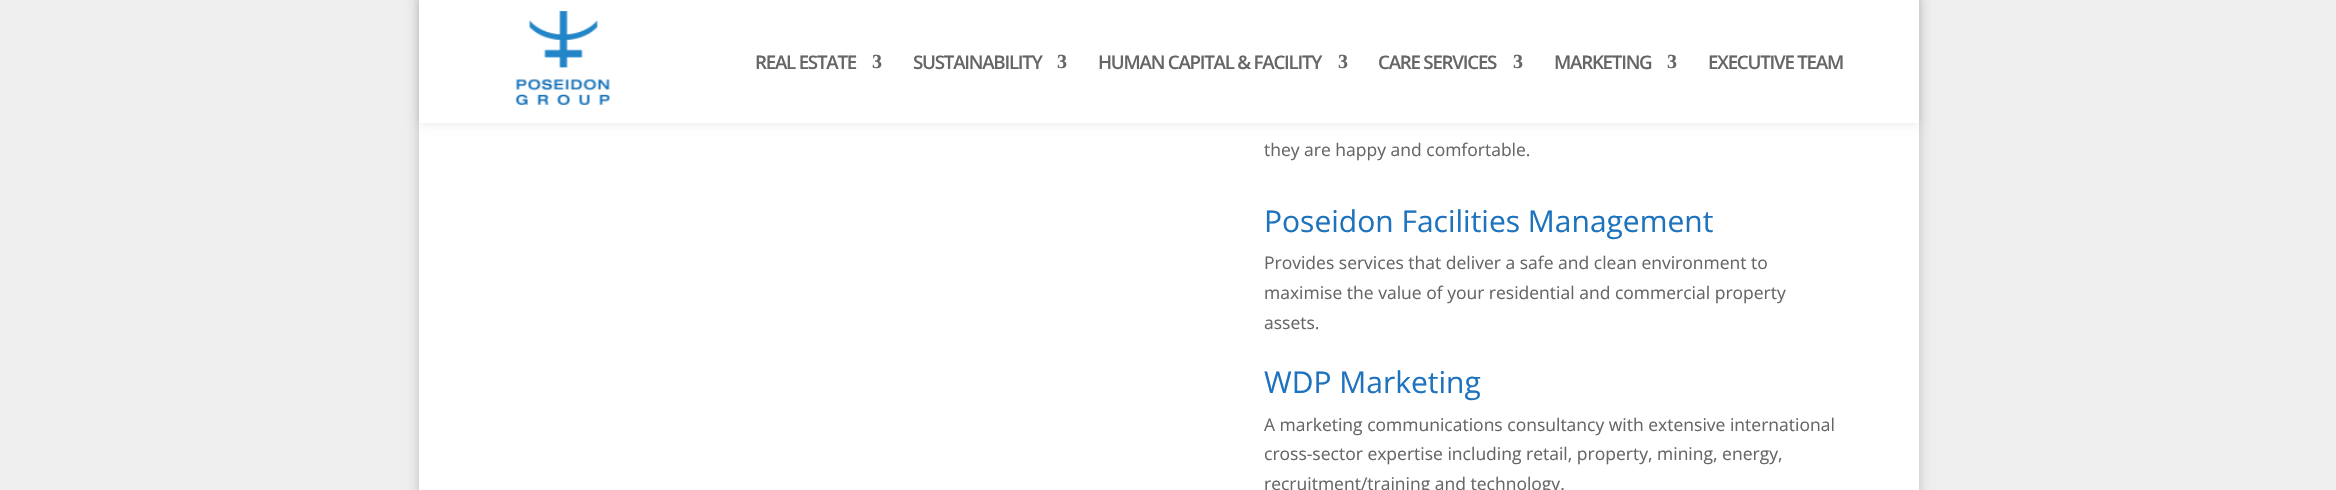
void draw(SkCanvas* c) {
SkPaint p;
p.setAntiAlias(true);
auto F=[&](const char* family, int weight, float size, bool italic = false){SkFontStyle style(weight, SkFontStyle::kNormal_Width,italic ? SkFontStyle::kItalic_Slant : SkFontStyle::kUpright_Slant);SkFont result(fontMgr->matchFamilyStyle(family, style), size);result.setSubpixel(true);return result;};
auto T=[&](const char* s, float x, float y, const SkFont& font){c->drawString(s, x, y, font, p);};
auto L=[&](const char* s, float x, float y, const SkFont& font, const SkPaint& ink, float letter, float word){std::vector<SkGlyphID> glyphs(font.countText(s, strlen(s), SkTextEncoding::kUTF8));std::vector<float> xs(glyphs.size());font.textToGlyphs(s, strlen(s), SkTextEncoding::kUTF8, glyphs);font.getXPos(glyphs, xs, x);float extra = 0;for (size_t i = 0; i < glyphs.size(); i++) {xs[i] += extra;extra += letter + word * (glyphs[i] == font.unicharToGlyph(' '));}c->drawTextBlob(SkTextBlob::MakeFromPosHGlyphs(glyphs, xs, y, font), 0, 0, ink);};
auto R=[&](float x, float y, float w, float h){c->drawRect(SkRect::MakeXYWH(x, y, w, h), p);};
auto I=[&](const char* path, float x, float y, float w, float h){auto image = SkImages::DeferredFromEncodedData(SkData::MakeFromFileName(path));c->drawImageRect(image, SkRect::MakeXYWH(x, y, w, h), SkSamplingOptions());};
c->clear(0xffefefef);
p.setColor(0x33000000);
p.setMaskFilter(SkMaskFilter::MakeBlur(kNormal_SkBlurStyle, 6));
c->drawRect(SkRect::MakeXYWH(419,-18,1500,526),p);
p.setMaskFilter(nullptr);
p.setColor(0xffffffff);
R(419,123,1500,367);
p.setColor(0x1a000000);
p.setMaskFilter(SkMaskFilter::MakeBlur(kNormal_SkBlurStyle, 4.5));
c->drawRect(SkRect::MakeXYWH(419,0,1500,123),p);
p.setMaskFilter(nullptr);
p.setColor(0xffffffff);
R(419,0,1500,123);
I("1.png",515,11,95,94);
auto f1 = F("Open Sans",600,18.75);
p.setColor(0xff666666);
L("REAL ESTATE",755,69,f1,p,-1.25,0);
auto f2 = F("Liberation Serif",700,20);
L("3",872,68,f2,p,-1.25,0);
L("SUSTAINABILITY",913,69,f1,p,-1.25,0);
L("3",1057,68,f2,p,-1.25,0);
L("HUMAN CAPITAL & FACILITY",1098,69,f1,p,-1.25,0);
L("3",1338,68,f2,p,-1.25,0);
L("CARE SERVICES",1378,69,f1,p,-1.25,0);
L("3",1513,68,f2,p,-1.25,0);
L("MARKETING",1554,69,f1,p,-1.25,0);
L("3",1667,68,f2,p,-1.25,0);
L("EXECUTIVE TEAM",1708,69,f1,p,-1.25,0);
auto f3 = F("Open Sans",400,17.5);
T("they are happy and comfortable.",1264,156,f3);
auto f4 = F("Open Sans",400,30);
p.setColor(0xff1e73be);
T("Poseidon Facilities Management",1264,232,f4);
p.setColor(0xff666666);
T("Provides services that deliver a safe and clean environment to",1264,269,f3);
T("maximise the value of your residential and commercial property",1264,299,f3);
T("assets.",1264,329,f3);
p.setColor(0xff1e73be);
T("WDP Marketing",1264,393,f4);
p.setColor(0xff666666);
T("A marketing communications consultancy with extensive international",1264,431,f3);
T("cross-sector expertise including retail, property, mining, energy,",1264,460,f3);
T("recruitment/training and technology.",1264,490,f3);
}
